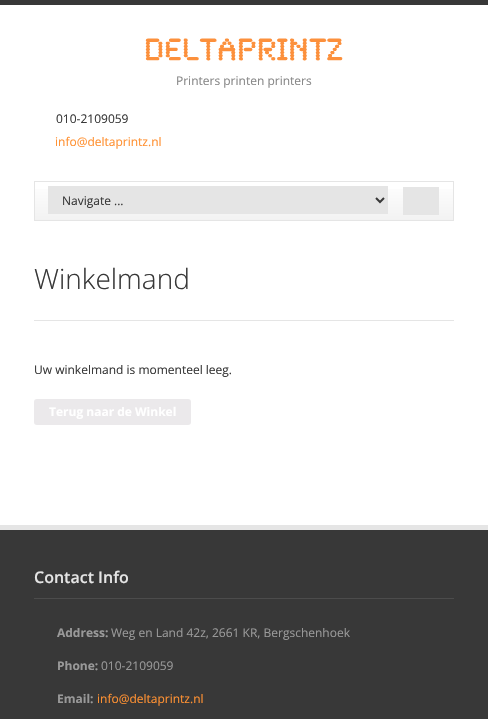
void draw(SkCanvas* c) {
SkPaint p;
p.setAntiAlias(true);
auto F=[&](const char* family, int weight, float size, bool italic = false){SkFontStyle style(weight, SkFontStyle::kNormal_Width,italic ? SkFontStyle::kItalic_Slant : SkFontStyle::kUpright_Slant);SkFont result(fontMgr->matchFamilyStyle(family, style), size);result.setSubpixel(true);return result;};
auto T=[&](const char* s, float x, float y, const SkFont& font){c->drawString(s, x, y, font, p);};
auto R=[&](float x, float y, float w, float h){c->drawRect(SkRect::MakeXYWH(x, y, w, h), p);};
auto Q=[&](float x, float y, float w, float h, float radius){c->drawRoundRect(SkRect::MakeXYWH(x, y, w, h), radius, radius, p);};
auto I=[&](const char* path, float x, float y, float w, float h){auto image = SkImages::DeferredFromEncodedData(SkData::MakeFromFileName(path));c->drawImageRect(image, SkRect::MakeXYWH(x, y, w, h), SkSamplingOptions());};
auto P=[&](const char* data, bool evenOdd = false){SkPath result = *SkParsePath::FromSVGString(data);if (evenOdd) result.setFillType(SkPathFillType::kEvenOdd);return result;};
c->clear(0xffffffff);
p.setColor(0xff383838);
R(0,0,488,5);
I("1.png",145,38,198,23);
auto f1 = F("Open Sans",400,12);
p.setColor(0xff888888);
T("Printers printen printers",176,85,f1);
p.setColor(0xff383838);
T("010-2109059",56,123,f1);
p.setColor(0xffff9132);
T("info@deltaprintz.nl",55,146,f1);
{
const SkColor colors[] = {0xffffffff,0xfff2f2f2};
const float stops[] = {0,1};
const SkPoint ends[] = {{244,182}, {244,220}};
p.setShader(SkGradientShader::MakeLinear(ends, colors, stops, 2, SkTileMode::kClamp));
p.setAlpha(255);
}
R(35,189,418,31);
p.setStroke(true);
p.setStrokeWidth(1);
p.setShader(nullptr);
p.setColor(0xffe5e5e5);
c->drawRect(SkRect::MakeXYWH(34.5,181.5,419,39),p);
p.setStroke(false);
R(48,186,340,28);
p.setStroke(true);
p.setStrokeWidth(2);
p.setColor(0xff383838);
c->drawPath(P("M376 198l4 4l4-4"),p);
p.setStroke(false);
T("Navigate ...",62,205,f1);
p.setColor(0xffe5e5e5);
R(403,187,36,28);
R(34,320,420,1);
auto f2 = F("Open Sans",300,28);
p.setColor(0xff383838);
T("Winkelmand",34,289,f2);
T("Uw winkelmand is momenteel leeg.",34,374,f1);
p.setColor(0xffebe9eb);
Q(34,399,157,26,3);
auto f3 = F("Open Sans",700,12);
p.setColor(0xffffffff);
T("Terug naar de Winkel",49,416,f3);
p.setColor(0xff383838);
R(0,530,488,189);
p.setColor(0xffe5e5e5);
R(0,525,488,5);
p.setColor(0xff4c4c4c);
R(34,598,420,1);
auto f4 = F("Open Sans",600,16);
p.setColor(0xffe5e5e5);
T("Contact Info",34,583,f4);
p.setColor(0xff999999);
T("Address:",57,637,f3);
T("Weg en Land 42z, 2661 KR, Bergschenhoek",111,637,f1);
T("Phone:",57,670,f3);
T("010-2109059",101,670,f1);
T("Email:",57,703,f3);
p.setColor(0xffff9132);
T("info@deltaprintz.nl",97,703,f1);
}
